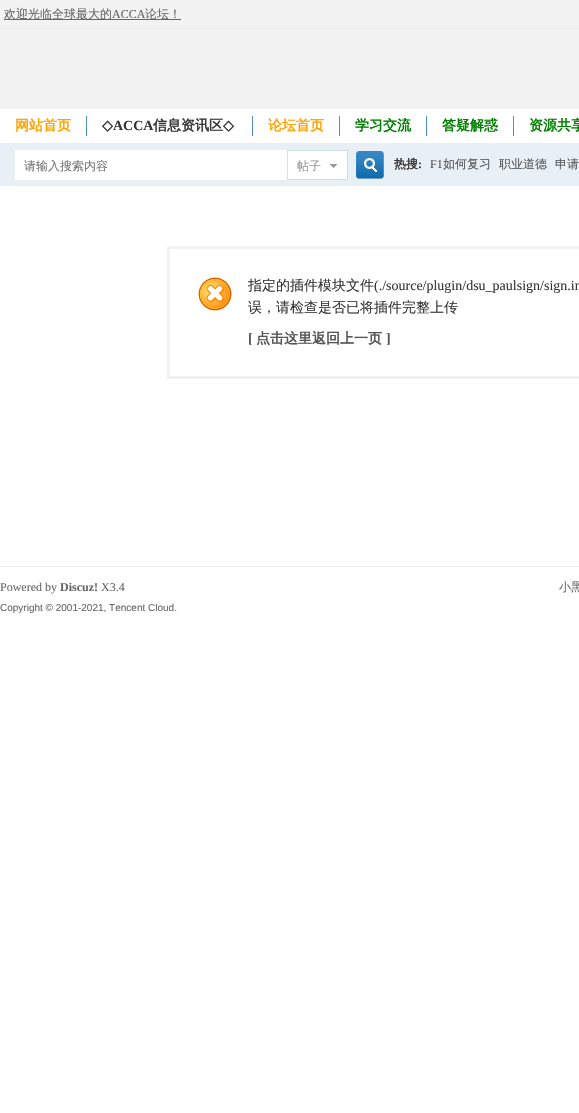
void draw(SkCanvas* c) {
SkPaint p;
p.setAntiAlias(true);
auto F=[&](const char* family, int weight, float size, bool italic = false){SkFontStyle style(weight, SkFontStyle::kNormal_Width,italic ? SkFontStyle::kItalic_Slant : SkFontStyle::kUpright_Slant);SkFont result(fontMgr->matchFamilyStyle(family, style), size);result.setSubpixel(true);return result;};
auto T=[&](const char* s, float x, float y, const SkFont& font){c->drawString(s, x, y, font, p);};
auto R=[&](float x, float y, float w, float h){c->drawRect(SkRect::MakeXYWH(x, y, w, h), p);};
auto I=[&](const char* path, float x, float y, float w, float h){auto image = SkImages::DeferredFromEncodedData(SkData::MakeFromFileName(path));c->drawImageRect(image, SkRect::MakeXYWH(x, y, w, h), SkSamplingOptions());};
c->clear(0xffffffff);
p.setColor(0xfff2f2f2);
R(0,0,579,28);
p.setColor(0xffededed);
R(0,28,579,1);
p.setColor(0xff666666);
R(4,19,177,1);
auto f1 = F("WenQuanYi Zen Hei",500,12);
T("欢迎光临全球最大的",4,18,f1);
auto f2 = F("Liberation Serif",400,12);
T("ACCA",112,18,f2);
T("论坛！",145,18,f1);
p.setColor(0xfff2f2f2);
R(0,29,579,80);
I("1.png",86,116,1,20);
auto f3 = F("WenQuanYi Zen Hei",700,14);
p.setColor(0xffffa500);
T("网站首页",15,130,f3);
I("1.png",252,116,1,20);
auto f4 = F("DejaVu Sans",700,14);
p.setColor(0xff363636);
T("◇",102,130,f4);
auto f5 = F("Liberation Serif",700,14);
T("ACCA",113,130,f5);
T("信息资讯区",153,130,f3);
T("◇",223,130,f4);
I("1.png",339,116,1,20);
p.setColor(0xffffa500);
T("论坛首页",268,130,f3);
I("1.png",426,116,1,20);
p.setColor(0xff008000);
T("学习交流",355,130,f3);
I("1.png",513,116,1,20);
T("答疑解惑",442,130,f3);
T("资源共享",529,130,f3);
p.setColor(0xffe8eff5);
R(0,143,579,43);
p.setColor(0xffffffff);
R(15,150,272,30);
I("2.png",356,151,28,28);
auto f6 = F("WenQuanYi Zen Hei",700,12);
p.setColor(0xff363636);
T("热搜",394,168,f6);
auto f7 = F("Liberation Serif",700,12);
T(":",418,168,f7);
p.setColor(0xff555555);
T("F1",430,168,f2);
T("如何复习",443,168,f1);
T("职业道德",499,168,f1);
T("申请",555,168,f1);
p.setColor(0xff757575);
T("请输入搜索内容",24,170,f1);
I("3.png",287,150,61,30);
p.setColor(0xff999999);
T("帖子",297,170,f1);
p.setStroke(true);
p.setStrokeWidth(3);
p.setColor(0xfff2f2f2);
c->drawRect(SkRect::MakeXYWH(168.5,247.5,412,130),p);
I("4.png",198,277,34,34);
auto f8 = F("WenQuanYi Zen Hei",500,14);
p.setStroke(false);
p.setColor(0xff363636);
T("指定的插件模块文件",248,290,f8);
auto f9 = F("Liberation Serif",400,14);
T("(./source/plugin/dsu_paulsign/sign.in",374,290,f9);
T("误，请检查是否已将插件完整上传",248,312,f8);
p.setColor(0xff555555);
T("[",248,343,f5);
T("点击这里返回上一页",256,343,f3);
T("]",386,343,f5);
p.setColor(0xffededed);
R(0,566,579,1);
p.setColor(0xff666666);
T("Powered by",0,591,f2);
T("Discuz!",60,591,f7);
T("X3.4",101,591,f2);
auto f10 = F("Liberation Sans",400,10);
T("Copyright © 2001-2021, Tencent Cloud.",0,611,f10);
T("小黑",559,591,f1);
}
